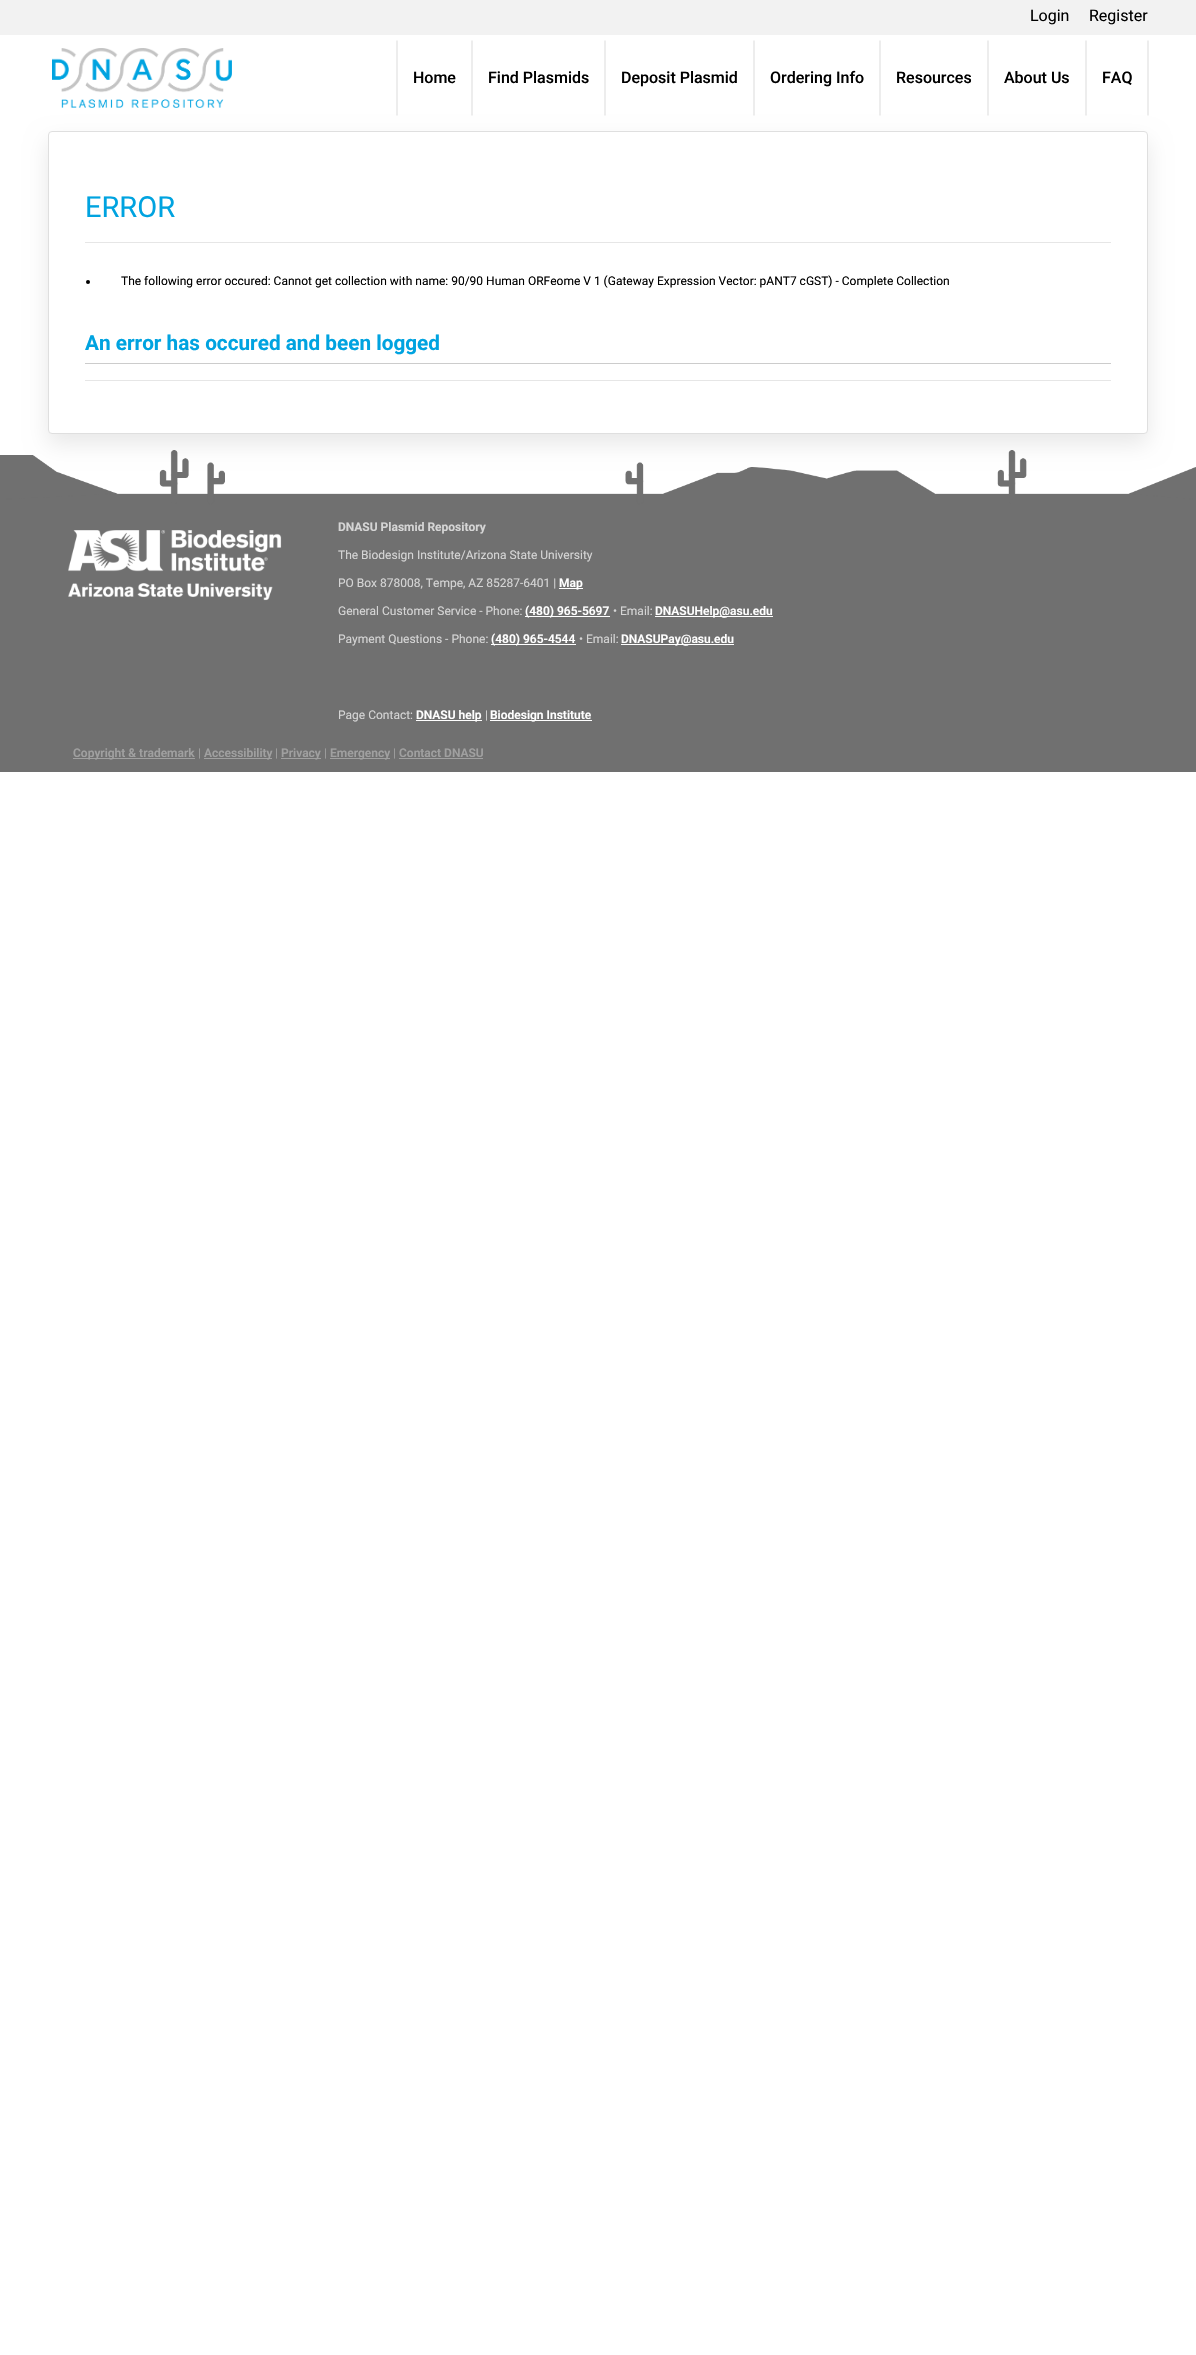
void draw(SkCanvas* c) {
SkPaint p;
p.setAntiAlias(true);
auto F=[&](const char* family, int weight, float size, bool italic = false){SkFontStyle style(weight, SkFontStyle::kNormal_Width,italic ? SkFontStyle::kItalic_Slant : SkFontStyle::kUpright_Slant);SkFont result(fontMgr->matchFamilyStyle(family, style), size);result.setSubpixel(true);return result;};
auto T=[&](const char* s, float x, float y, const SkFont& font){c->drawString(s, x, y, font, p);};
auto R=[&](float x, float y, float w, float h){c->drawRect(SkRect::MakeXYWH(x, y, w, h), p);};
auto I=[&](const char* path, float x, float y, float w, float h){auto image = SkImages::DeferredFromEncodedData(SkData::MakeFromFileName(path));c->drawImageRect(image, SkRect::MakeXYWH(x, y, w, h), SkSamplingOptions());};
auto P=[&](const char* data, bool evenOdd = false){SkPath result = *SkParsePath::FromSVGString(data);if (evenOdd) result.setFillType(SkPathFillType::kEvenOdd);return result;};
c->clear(0xffffffff);
p.setColor(0xfff2f2f2);
R(0,0,1196,35);
auto f1 = F("Roboto",400,16);
p.setColor(0xff000000);
T("Login",1030,21,f1);
T("Register",1089,21,f1);
I("1.png",52,48,180,60);
p.setStroke(true);
p.setStrokeWidth(1);
p.setColor(0xffdbdbdb);
c->drawPath(P("M397 40.5v75"),p);
auto f2 = F("Roboto",500,16);
p.setStroke(false);
p.setColor(0xff000000);
T("Home",413,83,f2);
p.setStroke(true);
p.setColor(0xffdbdbdb);
c->drawPath(P("M472 40.5v75"),p);
p.setStroke(false);
p.setColor(0xff000000);
T("Find Plasmids",488,83,f2);
p.setStroke(true);
p.setColor(0xffdbdbdb);
c->drawPath(P("M605 40.5v75"),p);
p.setStroke(false);
p.setColor(0xff000000);
T("Deposit Plasmid",621,83,f2);
p.setStroke(true);
p.setColor(0xffdbdbdb);
c->drawPath(P("M754 40.5v75"),p);
p.setStroke(false);
p.setColor(0xff000000);
T("Ordering Info",770,83,f2);
p.setStroke(true);
p.setColor(0xffdbdbdb);
c->drawPath(P("M880 40.5v75"),p);
p.setStroke(false);
p.setColor(0xff000000);
T("Resources",896,83,f2);
p.setStroke(true);
p.setColor(0xffdbdbdb);
c->drawPath(P("M988 40.5v75"),p);
p.setStroke(false);
p.setColor(0xff000000);
T("About Us",1004,83,f2);
p.setStroke(true);
p.setColor(0xffdbdbdb);
c->drawPath(P("M1086 40.5v75"),p);
p.setStroke(false);
p.setColor(0xff000000);
T("FAQ",1102,83,f2);
p.setStroke(true);
p.setColor(0xffdbdbdb);
c->drawPath(P("M1148 40.5v75"),p);
I("2.png",0,450,1196,60);
p.setStroke(false);
p.setColor(0x17000000);
p.setMaskFilter(SkMaskFilter::MakeBlur(kNormal_SkBlurStyle, 11));
c->drawRoundRect(SkRect::MakeXYWH(48,141,1100,303),4,4,p);
p.setMaskFilter(nullptr);
p.setColor(0xffffffff);
c->drawRoundRect(SkRect::MakeXYWH(48.5,131.5,1099,302),3.5,3.5,p);
p.setStroke(true);
p.setColor(0xffdfdfdf);
c->drawRoundRect(SkRect::MakeXYWH(48.5,131.5,1099,302),3.5,3.5,p);
auto f3 = F("Roboto",400,29);
p.setStroke(false);
p.setColor(0xff00a3e0);
T("ERROR",85,217,f3);
p.setColor(0xffe6e6e6);
R(85,242,1026,1);
p.setColor(0xff000000);
c->drawCircle(88,282,2,p);
auto f4 = F("Roboto",400,12);
T("The following error occured: Cannot get collection with name: 90/90 Human ORFeome V 1 (Gateway Expression Vector: pANT7 cGST) - Complete Collection",121,285,f4);
p.setColor(0xffcccccc);
R(85,363,1026,1);
auto f5 = F("Roboto",700,20.75);
p.setColor(0xff00a3e0);
T("An error has occured and been logged",85,350,f5);
p.setColor(0xffe6e6e6);
R(85,380,1026,1);
p.setColor(0xff707070);
R(0,510,1196,262);
I("3.png",68,530,214,71);
auto f6 = F("Roboto",700,12);
p.setColor(0xffd5d5d5);
T("DNASU Plasmid Repository",338,531,f6);
T("The Biodesign Institute/Arizona State University",338,559,f4);
T("PO Box 878008, Tempe, AZ 85287-6401 |",338,587,f4);
p.setColor(0xffffffff);
R(559,588,24,1);
auto f7 = F("Roboto",600,12);
T("Map",559,587,f7);
p.setColor(0xffd5d5d5);
T("General Customer Service - Phone:",338,615,f4);
p.setColor(0xffffffff);
R(525,616,85,1);
T("(480) 965-5697",525,615,f7);
p.setColor(0xffd5d5d5);
T("• Email:",613,615,f4);
p.setColor(0xffffffff);
R(655,616,118,1);
T("DNASUHelp@asu.edu",655,615,f7);
p.setColor(0xffd5d5d5);
T("Payment Questions - Phone:",338,643,f4);
p.setColor(0xffffffff);
R(491,644,85,1);
T("(480) 965-4544",491,643,f7);
p.setColor(0xffd5d5d5);
T("• Email:",579,643,f4);
p.setColor(0xffffffff);
R(621,644,113,1);
T("DNASUPay@asu.edu",621,643,f7);
p.setColor(0xffd5d5d5);
T("Page Contact:",338,719,f4);
p.setColor(0xffffffff);
R(416,720,66,1);
T("DNASU help",416,719,f7);
p.setColor(0xffd5d5d5);
T("|",485,719,f4);
p.setColor(0xffffffff);
R(490,720,102,1);
T("Biodesign Institute",490,719,f7);
p.setColor(0xffa0a0a0);
R(73,758,122,1);
T("Copyright & trademark",73,757,f7);
T("|",198,757,f4);
R(204,758,68,1);
T("Accessibility",204,757,f7);
T("|",275,757,f4);
R(281,758,40,1);
T("Privacy",281,757,f7);
T("|",324,757,f4);
R(330,758,60,1);
T("Emergency",330,757,f7);
T("|",393,757,f4);
T("Contact DNASU",399,757,f7);
R(399,758,84,1);
}
